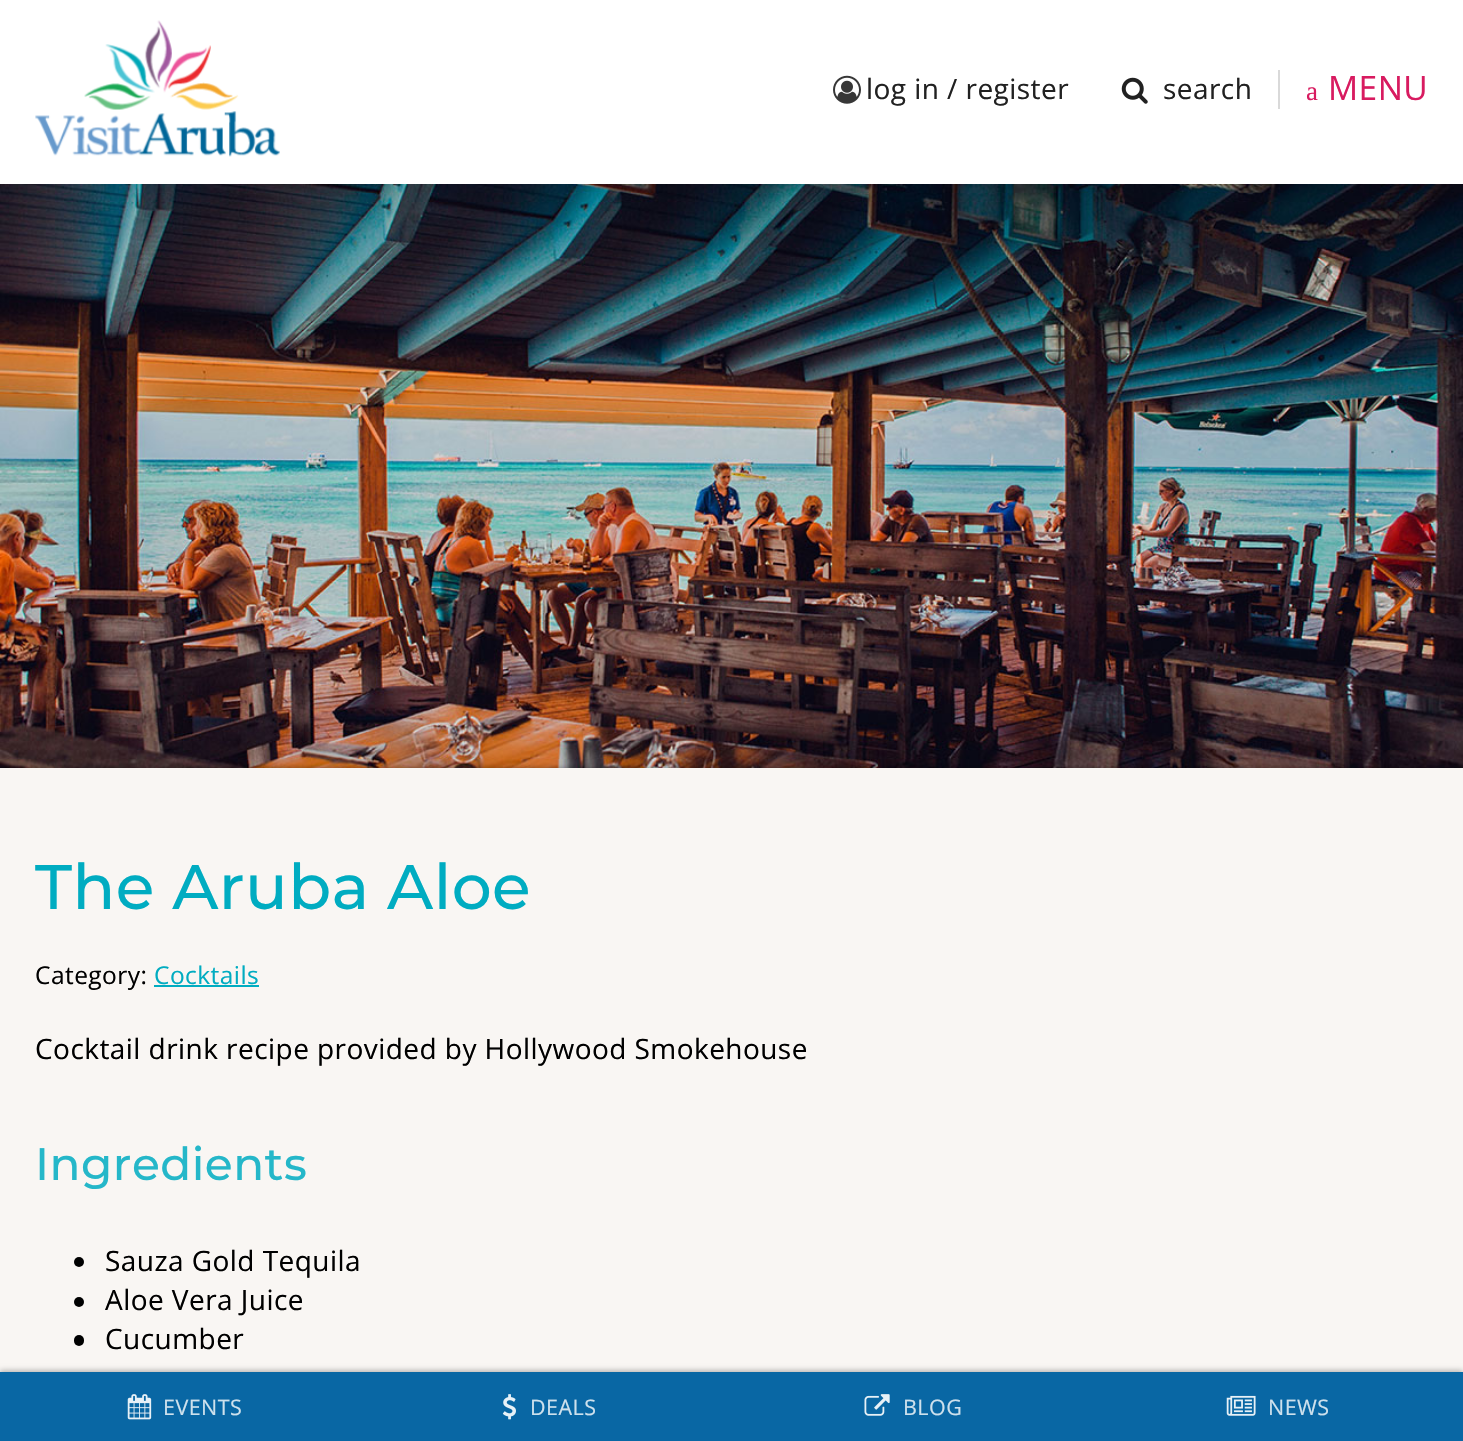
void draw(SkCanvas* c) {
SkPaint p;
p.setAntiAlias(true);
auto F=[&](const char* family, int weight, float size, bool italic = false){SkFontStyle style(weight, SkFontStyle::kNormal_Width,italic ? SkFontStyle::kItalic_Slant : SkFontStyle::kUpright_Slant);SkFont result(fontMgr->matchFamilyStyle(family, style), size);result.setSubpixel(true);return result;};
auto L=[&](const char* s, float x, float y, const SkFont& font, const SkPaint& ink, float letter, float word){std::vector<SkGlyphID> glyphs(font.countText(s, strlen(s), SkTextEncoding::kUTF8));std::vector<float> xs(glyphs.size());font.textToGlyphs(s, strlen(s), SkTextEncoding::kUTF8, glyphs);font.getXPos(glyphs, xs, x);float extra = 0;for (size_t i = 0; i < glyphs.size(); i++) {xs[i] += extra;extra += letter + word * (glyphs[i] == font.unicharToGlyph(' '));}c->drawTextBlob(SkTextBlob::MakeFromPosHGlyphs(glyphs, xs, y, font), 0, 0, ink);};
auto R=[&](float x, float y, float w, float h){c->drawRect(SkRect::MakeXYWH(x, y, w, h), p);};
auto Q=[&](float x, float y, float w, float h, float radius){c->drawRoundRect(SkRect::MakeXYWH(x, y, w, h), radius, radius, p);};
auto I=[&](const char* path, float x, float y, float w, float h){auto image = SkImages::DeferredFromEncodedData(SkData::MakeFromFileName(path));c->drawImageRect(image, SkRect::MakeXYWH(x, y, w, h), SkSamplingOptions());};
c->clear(0xffffffff);
I("1.png",35,20,245,137);
I("2.png",833,75,28,29);
auto f1 = F("Open Sans",400,28);
p.setColor(0xff212121);
L("log in / register",866,99,f1,p,.45,0);
I("8.png",0,184,1463,584);
p.setColor(0x40000000);
p.setMaskFilter(SkMaskFilter::MakeBlur(kNormal_SkBlurStyle, 2));
c->drawRect(SkRect::MakeXYWH(0,767,1463,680),p);
p.setMaskFilter(nullptr);
p.setColor(0xfff9f6f3);
R(0,768,1463,604);
p.setColor(0x40000000);
p.setMaskFilter(SkMaskFilter::MakeBlur(kNormal_SkBlurStyle, 2.5));
c->drawRect(SkRect::MakeXYWH(0,1370,1463,70),p);
p.setMaskFilter(nullptr);
p.setColor(0xff0967a4);
R(0,1372,1463,69);
I("3.png",127,1394,25,26);
auto f2 = F("Open Sans",400,21.5);
p.setColor(0xffcee1ed);
L("EVENTS",163,1415,f2,p,.45,0);
I("4.png",502,1394,14,26);
L("DEALS",530,1415,f2,p,.45,0);
I("5.png",864,1394,26,22);
L("BLOG",903,1415,f2,p,.45,0);
I("6.png",1226,1395,30,21);
L("NEWS",1268,1415,f2,p,.45,0);
p.setColor(0xffd9d9d9);
R(1278,70,2,39);
I("7.png",1121,77,27,27);
p.setColor(0xff212121);
L("search",1163,99,f1,p,.45,0);
auto f3 = F("Liberation Serif",400,27);
p.setColor(0xffd81b60);
L("a",1306,100,f3,p,.45,0);
auto f4 = F("Open Sans",400,33.5);
L("MENU",1328,100,f4,p,.45,0);
auto f5 = F("Montserrat",100,63);
p.setColor(0xff00acc1);
L("The Aruba Aloe",35,909,f5,p,.45,0);
auto f6 = F("Open Sans",400,24.5);
p.setColor(0xff000000);
L("Category:",35,984,f6,p,.45,0);
p.setColor(0xff00acc1);
L("Cocktails",154,984,f6,p,.45,0);
R(154,985,105,2);
p.setColor(0xff000000);
L("Cocktail drink recipe provided by Hollywood Smokehouse",35,1059,f1,p,.45,0);
auto f7 = F("Montserrat",100,45.5);
p.setColor(0xff25b7c9);
L("Ingredients",35,1180,f7,p,.45,0);
p.setColor(0xff000000);
c->drawCircle(79,1262,5,p);
L("Sauza Gold Tequila",105,1271,f1,p,.45,0);
c->drawCircle(79,1302,5,p);
L("Aloe Vera Juice",105,1310,f1,p,.45,0);
Q(74,1335,10,11,5);
L("Cucumber",105,1349,f1,p,.45,0);
}
